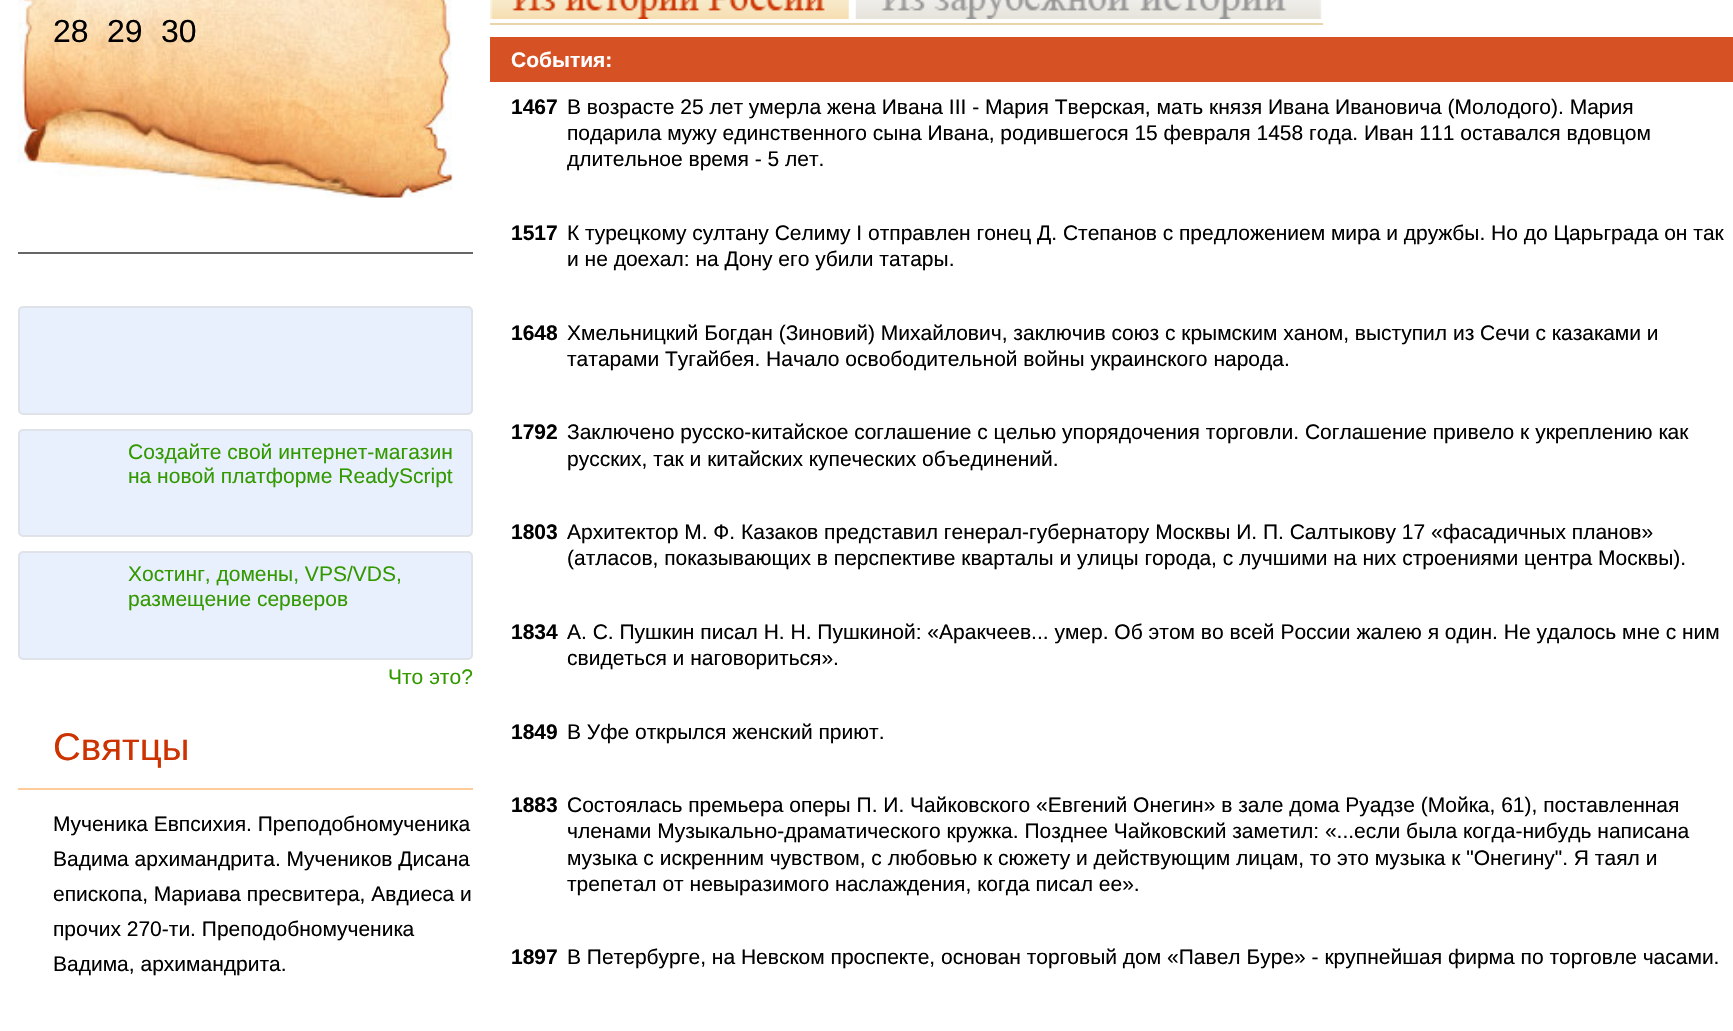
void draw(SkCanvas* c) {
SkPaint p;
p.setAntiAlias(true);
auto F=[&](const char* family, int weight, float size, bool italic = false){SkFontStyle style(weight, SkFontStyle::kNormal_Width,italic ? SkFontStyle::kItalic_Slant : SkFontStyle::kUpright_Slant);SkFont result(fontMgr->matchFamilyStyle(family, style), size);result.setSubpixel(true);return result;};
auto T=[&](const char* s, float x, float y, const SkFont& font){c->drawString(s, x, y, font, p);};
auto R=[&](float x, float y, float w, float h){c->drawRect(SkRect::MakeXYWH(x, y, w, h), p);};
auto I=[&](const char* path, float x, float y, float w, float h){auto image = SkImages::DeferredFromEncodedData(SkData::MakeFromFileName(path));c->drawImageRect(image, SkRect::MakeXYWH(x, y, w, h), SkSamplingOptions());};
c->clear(0xffffffff);
I("1.png",17,0,437,198);
auto f1 = F("Liberation Sans",400,32);
p.setColor(0xff000000);
T("28",53,42,f1);
T("29",107,42,f1);
T("30",161,42,f1);
p.setColor(0xff666666);
R(18,252,455,2);
p.setColor(0xffe8effd);
c->drawRoundRect(SkRect::MakeXYWH(19,307,453,107),4,4,p);
p.setStroke(true);
p.setStrokeWidth(2);
p.setColor(0xffdfe3e8);
c->drawRoundRect(SkRect::MakeXYWH(19,307,453,107),4,4,p);
p.setStroke(false);
p.setColor(0xffe8effd);
c->drawRoundRect(SkRect::MakeXYWH(19,430,453,106),4,4,p);
p.setStroke(true);
p.setColor(0xffdfe3e8);
c->drawRoundRect(SkRect::MakeXYWH(19,430,453,106),4,4,p);
auto f2 = F("Liberation Sans",400,21);
p.setStroke(false);
p.setColor(0xff339900);
T("Создайте свой интернет-магазин",128,459,f2);
T("на новой платформе ReadyScript",128,483,f2);
p.setColor(0xffe8effd);
c->drawRoundRect(SkRect::MakeXYWH(19,552,453,107),4,4,p);
p.setStroke(true);
p.setColor(0xffdfe3e8);
c->drawRoundRect(SkRect::MakeXYWH(19,552,453,107),4,4,p);
p.setStroke(false);
p.setColor(0xff339900);
T("Хостинг, домены, VPS/VDS,",128,581,f2);
T("размещение серверов",128,606,f2);
T("Что это?",388,684,f2);
p.setColor(0xffffcc99);
R(18,788,455,2);
auto f3 = F("Liberation Sans",400,38.5);
p.setColor(0xffcc3300);
T("Святцы",53,760,f3);
p.setColor(0xff000000);
T("Мученика Евпсихия. Преподобномученика",53,831,f2);
T("Вадима архимандрита. Мучеников Дисана",53,866,f2);
T("епископа, Мариава пресвитера, Авдиеса и",53,901,f2);
T("прочих 270-ти. Преподобномученика",53,936,f2);
T("Вадима, архимандрита.",53,971,f2);
p.setColor(0xffead4aa);
R(490,23,833,2);
I("2.png",490,0,359,19);
I("3.png",855,0,467,19);
p.setColor(0xffd65124);
R(490,37,1243,45);
auto f4 = F("Liberation Sans",700,21);
p.setColor(0xffffffff);
T("События:",511,67,f4);
p.setColor(0xff000000);
T("1467",511,114,f4);
T("В возрасте 25 лет умерла жена Ивана III - Мария Тверская, мать князя Ивана Ивановича (Молодого). Мария",567,114,f2);
T("подарила мужу единственного сына Ивана, родившегося 15 февраля 1458 года. Иван 111 оставался вдовцом",567,140,f2);
T("длительное время - 5 лет.",567,166,f2);
T("1517",511,240,f4);
T("К турецкому султану Селиму I отправлен гонец Д. Степанов с предложением мира и дружбы. Но до Царьграда он так",567,240,f2);
T("и не доехал: на Дону его убили татары.",567,266,f2);
T("1648",511,340,f4);
T("Хмельницкий Богдан (Зиновий) Михайлович, заключив союз с крымским ханом, выступил из Сечи с казаками и",567,340,f2);
T("татарами Тугайбея. Начало освободительной войны украинского народа.",567,366,f2);
T("1792",511,439,f4);
T("Заключено русско-китайское соглашение с целью упорядочения торговли. Соглашение привело к укреплению как",567,439,f2);
T("русских, так и китайских купеческих объединений.",567,466,f2);
T("1803",511,539,f4);
T("Архитектор М. Ф. Казаков представил генерал-губернатору Москвы И. П. Салтыкову 17 «фасадичных планов»",567,539,f2);
T("(атласов, показывающих в перспективе кварталы и улицы города, с лучшими на них строениями центра Москвы).",567,565,f2);
T("1834",511,639,f4);
T("А. С. Пушкин писал Н. Н. Пушкиной: «Аракчеев... умер. Об этом во всей России жалею я один. Не удалось мне с ним",567,639,f2);
T("свидеться и наговориться».",567,665,f2);
T("1849",511,739,f4);
T("В Уфе открылся женский приют.",567,739,f2);
T("1883",511,812,f4);
T("Состоялась премьера оперы П. И. Чайковского «Евгений Онегин» в зале дома Руадзе (Мойка, 61), поставленная",567,812,f2);
T("членами Музыкально-драматического кружка. Позднее Чайковский заметил: «...если была когда-нибудь написана",567,838,f2);
T("музыка с искренним чувством, с любовью к сюжету и действующим лицам, то это музыка к \"Онегину\". Я таял и",567,865,f2);
T("трепетал от невыразимого наслаждения, когда писал ее».",567,891,f2);
T("1897",511,964,f4);
T("В Петербурге, на Невском проспекте, основан торговый дом «Павел Буре» - крупнейшая фирма по торговле часами.",567,964,f2);
}
